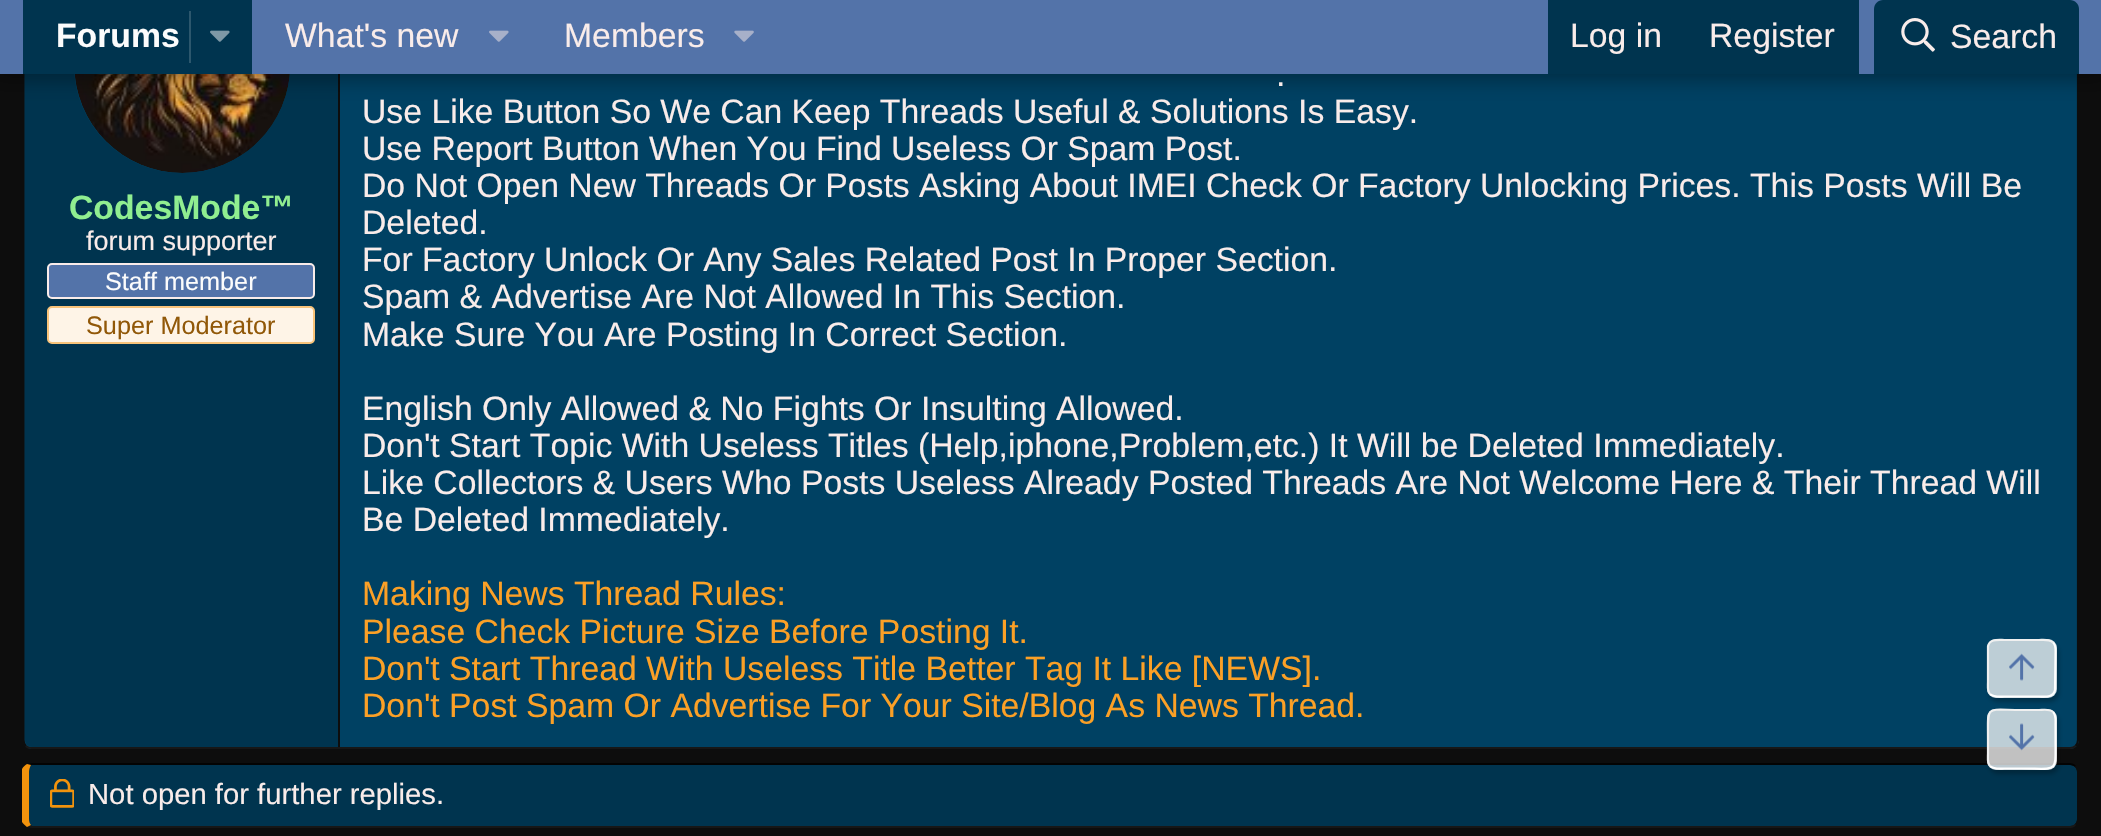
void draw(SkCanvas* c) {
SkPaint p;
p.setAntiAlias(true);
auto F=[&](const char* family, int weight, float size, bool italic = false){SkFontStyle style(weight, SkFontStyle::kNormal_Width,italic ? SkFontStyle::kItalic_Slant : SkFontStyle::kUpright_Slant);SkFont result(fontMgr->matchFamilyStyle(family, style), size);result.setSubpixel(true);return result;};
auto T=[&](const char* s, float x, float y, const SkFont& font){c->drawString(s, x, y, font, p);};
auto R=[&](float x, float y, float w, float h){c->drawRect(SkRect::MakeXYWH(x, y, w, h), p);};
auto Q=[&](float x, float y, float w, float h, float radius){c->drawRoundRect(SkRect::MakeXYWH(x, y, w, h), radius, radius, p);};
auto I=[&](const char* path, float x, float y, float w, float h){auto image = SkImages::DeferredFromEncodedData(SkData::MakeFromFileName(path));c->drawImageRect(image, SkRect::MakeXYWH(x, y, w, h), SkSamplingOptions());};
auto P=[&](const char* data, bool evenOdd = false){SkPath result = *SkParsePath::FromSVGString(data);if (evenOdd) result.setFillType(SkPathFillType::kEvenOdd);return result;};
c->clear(0xff0d0d0d);
p.setColor(0xff004163);
Q(23,-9,2056,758,9);
p.setStroke(true);
p.setStrokeWidth(2.2);
p.setColor(0xff0d0d0d);
c->drawPath(P("M2075.5-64c1.5 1.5 2.5 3.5 2.5 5.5v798.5c0 2.5-1 4.5-2.5 6"),p);
p.setColor(0xff171717);
c->drawPath(P("M2075.5 746c-1.5 1.5-3.5 2-5.5 2h-2038.5c-2 0-4-.5-5.5-2"),p);
p.setColor(0xff0d0d0d);
c->drawPath(P("M26 746c-1.5-1.5-2.5-3.5-2.5-6v-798.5c0-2 1-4 2.5-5.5"),p);
p.setStroke(false);
p.setColor(0xff00344f);
c->drawPath(P("M32-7h308v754h-308c-4 0-7-3-7-7v-740c0-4 3-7 7-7z"),p);
p.setColor(0xff0d0d0d);
R(338,74,2,673);
p.setColor(0xff004163);
c->drawCircle(182,65,108,p);
I("5.png",74,74,216,99);
p.setColor(0x4d000000);
p.setMaskFilter(SkMaskFilter::MakeBlur(kNormal_SkBlurStyle, 9));
c->drawRect(SkRect::MakeXYWH(-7,-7,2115,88),p);
p.setMaskFilter(nullptr);
p.setColor(0xff5373a9);
R(0,0,2101,74);
p.setColor(0xff00344f);
R(23,0,229,74);
auto f1 = F("Liberation Sans",700,33.75);
p.setColor(0xfffcfcfc);
T("Forums",56,47,f1);
p.setColor(0xff2c576d);
R(189,11,2,52);
I("1.png",210,30,20,12);
auto f2 = F("Liberation Sans",400,33.75);
p.setColor(0xfff9ecea);
T("What's new",285,47,f2);
I("2.png",489,30,20,12);
T("Members",564,47,f2);
I("3.png",734,30,20,12);
p.setColor(0xff00344f);
R(1548,0,311,74);
p.setColor(0xfff9ecea);
T("Log in",1570,47,f2);
T("Register",1709,47,f2);
p.setColor(0xff00344f);
c->drawPath(P("M1883 0h187c5 0 9 4 9 9v65h-205v-65c0-5 4-9 9-9z"),p);
I("4.png",1901,18,34,34);
p.setColor(0xfff9ecea);
T("Search",1950,48,f2);
p.setColor(0xff90ee90);
T("CodesMode™",69,219,f1);
auto f3 = F("Liberation Sans",400,27);
p.setColor(0xfff9ecea);
T("forum supporter",86,250,f3);
p.setColor(0xff5373a9);
c->drawRoundRect(SkRect::MakeXYWH(48,264,266,34),4,4,p);
p.setStroke(true);
p.setStrokeWidth(2);
p.setColor(0xfff9ecea);
c->drawRoundRect(SkRect::MakeXYWH(48,264,266,34),4,4,p);
auto f4 = F("Liberation Sans",400,25.25);
p.setStroke(false);
p.setColor(0xfffcfcfc);
T("Staff member",105,290,f4);
p.setColor(0xfffef4e7);
c->drawRoundRect(SkRect::MakeXYWH(48,307,266,36),4,4,p);
p.setStroke(true);
p.setColor(0xfff8c37a);
c->drawRoundRect(SkRect::MakeXYWH(48,307,266,36),4,4,p);
p.setStroke(false);
p.setColor(0xff915808);
T("Super Moderator",86,334,f4);
p.setColor(0xfff9ecea);
T(".",1276,86,f2);
T("Use Like Button So We Can Keep Threads Useful & Solutions Is Easy.",362,123,f2);
T("Use Report Button When You Find Useless Or Spam Post.",362,160,f2);
T("Do Not Open New Threads Or Posts Asking About IMEI Check Or Factory Unlocking Prices. This Posts Will Be",362,197,f2);
T("Deleted.",362,234,f2);
T("For Factory Unlock Or Any Sales Related Post In Proper Section.",362,271,f2);
T("Spam & Advertise Are Not Allowed In This Section.",362,308,f2);
T("Make Sure You Are Posting In Correct Section.",362,346,f2);
T("English Only Allowed & No Fights Or Insulting Allowed.",362,420,f2);
T("Don't Start Topic With Useless Titles (Help,iphone,Problem,etc.) It Will be Deleted Immediately.",362,457,f2);
T("Like Collectors & Users Who Posts Useless Already Posted Threads Are Not Welcome Here & Their Thread Will",362,494,f2);
T("Be Deleted Immediately.",362,531,f2);
p.setColor(0xfffba026);
T("Making News Thread Rules:",362,605,f2);
T("Please Check Picture Size Before Posting It.",362,643,f2);
T("Don't Start Thread With Useless Title Better Tag It Like [NEWS].",362,680,f2);
T("Don't Post Spam Or Advertise For Your Site/Blog As News Thread.",362,717,f2);
p.setColor(0xff00344f);
c->drawPath(P("M32 765h2038c4 0 7 3 7 7v47c0 4-3 7-7 7h-2038c-2 0-3-3-3-7v-47c0-4 1-7 3-7z"),p);
p.setColor(0xff030303);
c->drawPath(P("M32 763l-5 1l4 1h1h2038c2 0 4 1 5 2l1-1c-1-2-4-3-6-3z"),p);
p.setColor(0xff0d0d0d);
c->drawPath(P("M2076 766c2 1 3 3 3 6v47c0 3-1 5-3 6l-1-1c1-1 2-3 2-5v-47c0-2-1-4-2-5z"),p);
p.setColor(0xff171717);
c->drawPath(P("M32 828h2038c2 0 5-1 6-3l-1-1c-1 1-3 2-5 2h-2038l-1-1l-4 2c1 0 3 1 5 1z"),p);
p.setColor(0xfff2930d);
c->drawPath(P("M22 769c1-2 3-4 5-5l4 1c-1 2-2 4-2 7v47c0 3 1 5 2 6l-4 2c-2-2-4-3-5-5z"),p);
I("6.png",50,779,24,29);
auto f5 = F("Liberation Sans",400,29.25);
p.setColor(0xfff9ecea);
T("Not open for further replies.",88,804,f5);
c->save();
c->clipPath(P("M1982 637h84v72h-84zm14 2h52c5 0 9 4 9 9v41c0 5-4 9-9 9h-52c-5 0-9-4-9-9v-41c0-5 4-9 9-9z",true),true);
p.setColor(0x40000000);
p.setMaskFilter(SkMaskFilter::MakeBlur(kNormal_SkBlurStyle, 2));
c->drawRoundRect(SkRect::MakeXYWH(1989,644,70,58),9,9,p);
p.setMaskFilter(nullptr);
c->restore();
p.setColor(0xbffcfcfc);
Q(1987,639,70,59,9);
p.setStroke(true);
p.setStrokeWidth(2.2);
p.setColor(0xffffffff);
c->drawPath(P("M2053 642.5c3.5 3 2.5 8 2.5 12.5l-.5 35c-1.5 8-10.5 6.5-16 6.5h-34.5c-4.5 0-10.5 1-14.5-2.5"),p);
p.setColor(0xfff0f0f0);
c->drawPath(P("M1990 694c-3-3-2-8-2-12v-35.5c1.5-8 10.5-6.5 16.5-6.5h34.5c4 0 10.5-1 14 2.5"),p);
I("7.png",2009,653,26,28);
c->save();
c->clipPath(P("M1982 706h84v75h-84zm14 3h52c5 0 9 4 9 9v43c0 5-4 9-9 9h-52c-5 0-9-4-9-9v-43c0-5 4-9 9-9z",true),true);
p.setStroke(false);
p.setColor(0x40000000);
p.setMaskFilter(SkMaskFilter::MakeBlur(kNormal_SkBlurStyle, 2));
c->drawRoundRect(SkRect::MakeXYWH(1989,713,70,61),9,9,p);
p.setMaskFilter(nullptr);
c->restore();
p.setColor(0xbffcfcfc);
Q(1987,709,70,61,9);
p.setStroke(true);
p.setColor(0xffffffff);
c->drawPath(P("M2053 712c3.5 3.5 2.5 8.5 2.5 13v14c0 35 3 29.5-34 29.5h-17c-4.5 0-10.5 1-14.5-2.5"),p);
p.setColor(0xfff0f0f0);
c->drawPath(P("M1990 766c-3-3-2-8.5-2-12.5v-14.5c0-35-3.5-29 33.5-29h17.5c4 0 10.5-1.5 14 2"),p);
I("8.png",2009,723,26,28);
}
